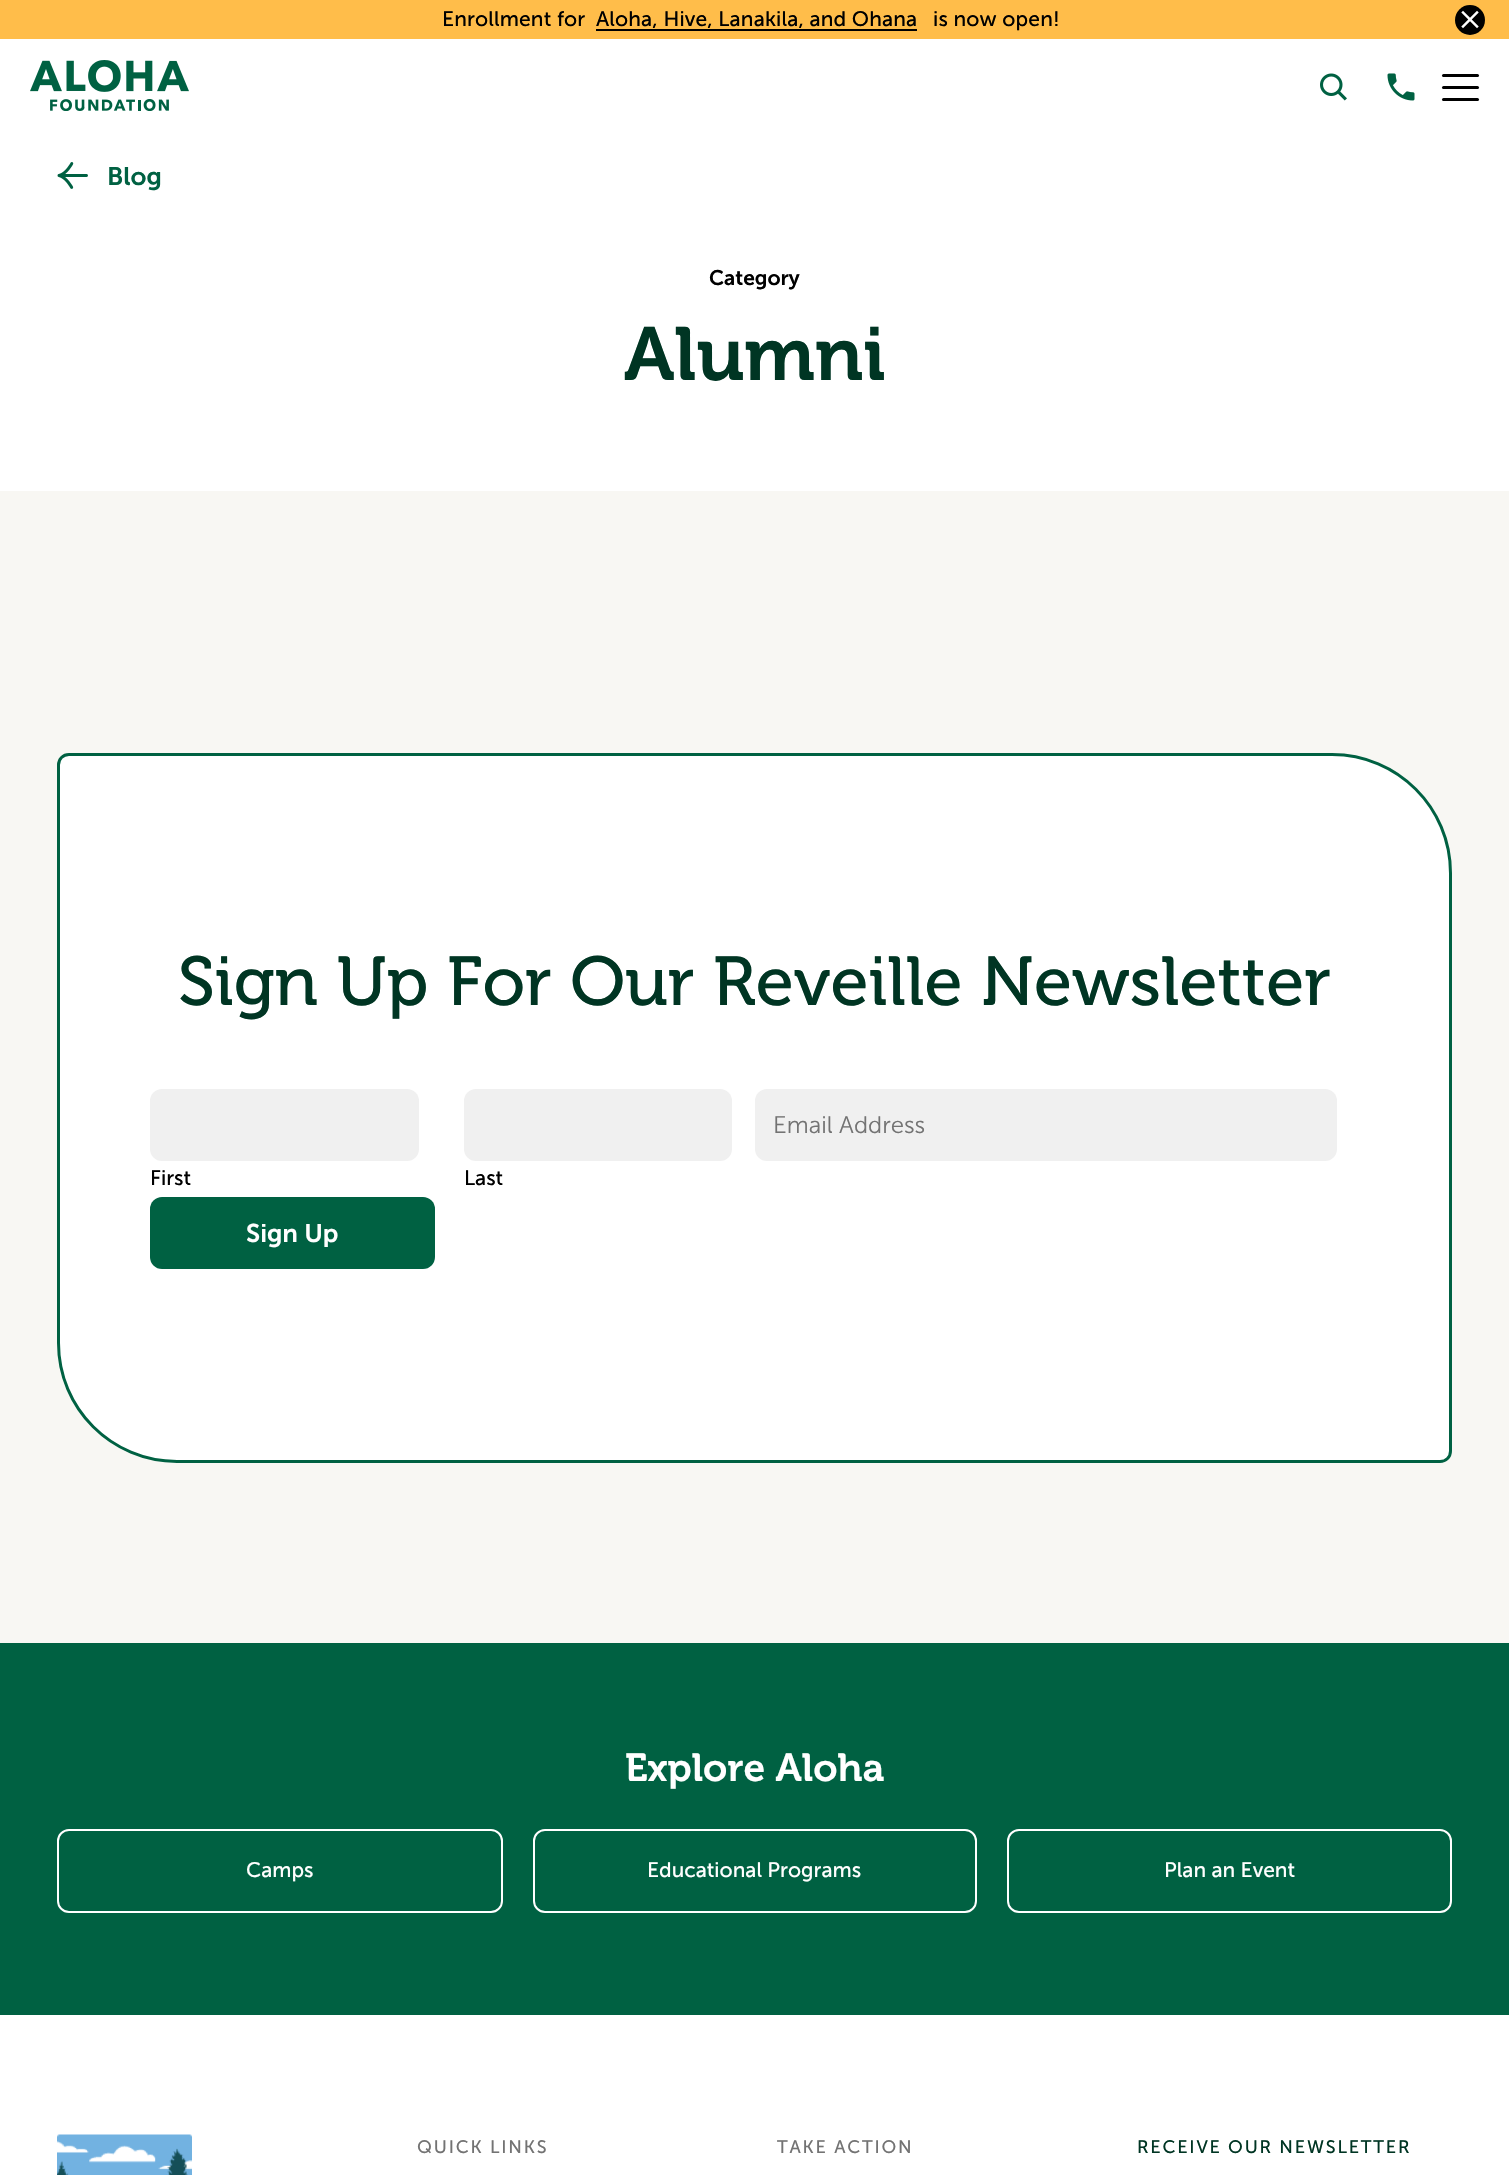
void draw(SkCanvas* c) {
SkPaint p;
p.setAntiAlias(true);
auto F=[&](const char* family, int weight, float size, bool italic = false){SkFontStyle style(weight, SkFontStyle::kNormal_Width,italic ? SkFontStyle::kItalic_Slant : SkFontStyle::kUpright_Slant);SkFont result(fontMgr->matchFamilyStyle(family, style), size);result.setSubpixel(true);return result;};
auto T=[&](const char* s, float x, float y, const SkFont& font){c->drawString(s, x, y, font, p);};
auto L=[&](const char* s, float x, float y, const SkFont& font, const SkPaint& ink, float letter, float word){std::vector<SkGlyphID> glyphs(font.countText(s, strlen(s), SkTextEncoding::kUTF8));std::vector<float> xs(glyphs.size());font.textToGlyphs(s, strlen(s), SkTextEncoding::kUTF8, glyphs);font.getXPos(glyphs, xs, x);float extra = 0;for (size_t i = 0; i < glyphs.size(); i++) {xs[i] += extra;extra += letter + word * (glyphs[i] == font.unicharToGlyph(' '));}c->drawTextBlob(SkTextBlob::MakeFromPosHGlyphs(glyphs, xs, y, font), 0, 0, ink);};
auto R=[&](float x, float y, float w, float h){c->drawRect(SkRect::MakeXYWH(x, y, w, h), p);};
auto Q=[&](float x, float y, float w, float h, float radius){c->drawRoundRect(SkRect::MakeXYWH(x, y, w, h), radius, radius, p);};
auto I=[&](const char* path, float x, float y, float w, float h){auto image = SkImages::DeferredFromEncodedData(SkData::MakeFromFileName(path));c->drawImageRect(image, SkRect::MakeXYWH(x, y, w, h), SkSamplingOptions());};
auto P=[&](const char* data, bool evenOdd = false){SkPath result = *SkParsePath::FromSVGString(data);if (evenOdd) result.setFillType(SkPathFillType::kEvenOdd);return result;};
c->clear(0xffffffff);
p.setColor(0xffffbd4a);
R(0,0,1509,39);
auto f1 = F("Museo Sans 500",400,21);
p.setColor(0xff000000);
L("Enrollment for",442,26,f1,p,.15,0);
R(596,29,321,2);
L("Aloha, Hive, Lanakila, and Ohana",596,26,f1,p,.15,0);
L("is now open!",933,26,f1,p,.15,0);
c->drawCircle(1470,20,15,p);
I("1.png",1461,10,18,19);
I("2.png",30,60,159,51);
I("3.png",1320,73,27,28);
I("4.png",1387,73,28,28);
Q(1442,74,37,3,1.5);
Q(1442,86,37,3,1.5);
Q(1442,98,37,3,1.5);
p.setColor(0xfff8f7f3);
R(0,491,1509,1152);
I("5.png",57,162,31,27);
auto f2 = F("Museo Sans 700",600,25.5);
p.setColor(0xff006142);
T("Blog",107,185,f2);
auto f3 = F("Museo Sans 700",600,21);
p.setColor(0xff000000);
T("Category",709,285,f3);
auto f4 = F("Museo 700",600,75);
p.setColor(0xff003523);
T("Alumni",624,380,f4);
p.setColor(0xffffffff);
c->drawPath(P("M69 754.5h1263c65.5 0 118.5 53 118.5 118.5v578c0 6-4.5 10.5-10.5 10.5h-1263c-65.5 0-118.5-53-118.5-118.5v-578c0-6 4.5-10.5 10.5-10.5z"),p);
p.setStroke(true);
p.setStrokeWidth(3);
p.setColor(0xff006142);
c->drawPath(P("M69 754.5h1263c65.5 0 118.5 53 118.5 118.5v578c0 6-4.5 10.5-10.5 10.5h-1263c-65.5 0-118.5-53-118.5-118.5v-578c0-6 4.5-10.5 10.5-10.5z"),p);
auto f5 = F("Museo",400,69);
p.setStroke(false);
p.setColor(0xff003523);
T("Sign Up For Our Reveille Newsletter",178,1005,f5);
p.setColor(0xfff0f0f0);
Q(755,1089,582,72,12);
auto f6 = F("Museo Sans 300",300,24);
p.setColor(0xff737373);
T("Email Address",773,1133,f6);
p.setColor(0xfff0f0f0);
Q(150,1089,269,72,12);
p.setColor(0xff000000);
T("First",150,1185,f1);
p.setColor(0xfff0f0f0);
Q(464,1089,268,72,12);
p.setColor(0xff000000);
T("Last",464,1185,f1);
p.setColor(0xff006142);
Q(150,1197,285,72,12);
p.setColor(0xffffffff);
T("Sign Up",246,1242,f2);
p.setColor(0xff006142);
R(0,1643,1509,372);
auto f7 = F("Museo 700",600,39);
p.setColor(0xffffffff);
T("Explore Aloha",625,1781,f7);
p.setStroke(true);
p.setStrokeWidth(2);
c->drawRoundRect(SkRect::MakeXYWH(58,1830,444,82),11,11,p);
p.setStroke(false);
T("Camps",246,1877,f1);
p.setStroke(true);
c->drawRoundRect(SkRect::MakeXYWH(534,1830,442,82),11,11,p);
p.setStroke(false);
T("Educational Programs",647,1877,f1);
p.setStroke(true);
c->drawRoundRect(SkRect::MakeXYWH(1008,1830,443,82),11,11,p);
p.setStroke(false);
T("Plan an Event",1164,1877,f1);
I("6.png",57,2134,135,41);
auto f8 = F("Museo Sans 500",400,18);
p.setColor(0xff737373);
L("QUICK LINKS",417,2153,f8,p,1.8,0);
L("TAKE ACTION",777,2153,f8,p,1.8,0);
p.setColor(0xff003523);
L("RECEIVE OUR NEWSLETTER",1137,2153,f8,p,1.8,0);
}
